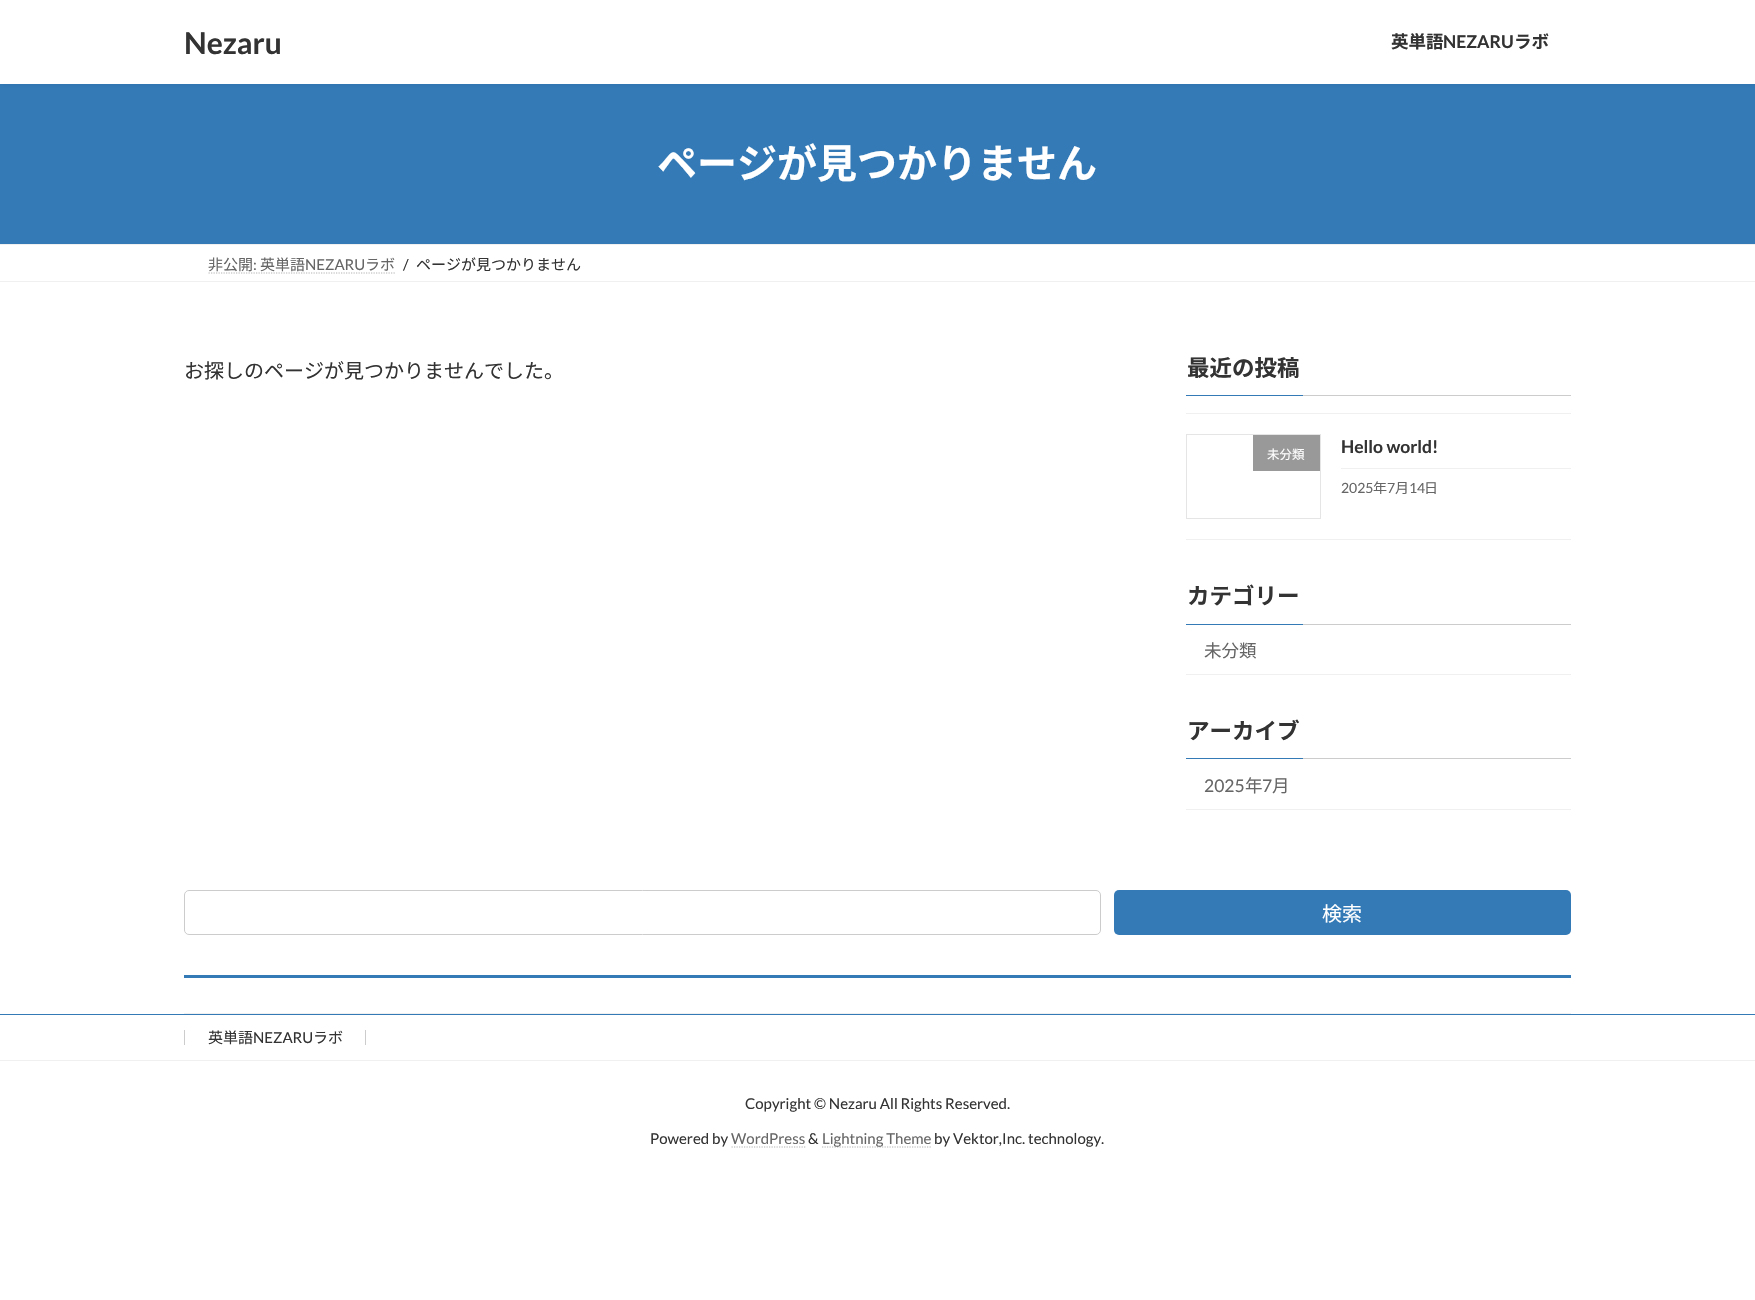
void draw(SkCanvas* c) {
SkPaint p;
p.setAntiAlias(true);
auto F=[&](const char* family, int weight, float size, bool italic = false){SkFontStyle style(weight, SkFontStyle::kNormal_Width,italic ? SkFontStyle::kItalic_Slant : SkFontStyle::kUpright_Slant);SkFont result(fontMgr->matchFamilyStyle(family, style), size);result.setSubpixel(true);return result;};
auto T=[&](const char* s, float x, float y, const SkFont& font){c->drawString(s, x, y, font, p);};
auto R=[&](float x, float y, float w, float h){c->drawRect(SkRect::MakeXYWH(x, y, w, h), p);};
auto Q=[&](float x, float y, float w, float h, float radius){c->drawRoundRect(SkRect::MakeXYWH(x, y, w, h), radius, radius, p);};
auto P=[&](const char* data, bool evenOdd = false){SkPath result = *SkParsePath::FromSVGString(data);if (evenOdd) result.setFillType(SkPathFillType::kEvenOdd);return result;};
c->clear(0xffffffff);
p.setColor(0xff337ab7);
R(0,84,1755,160);
p.setColor(0x0d000000);
p.setMaskFilter(SkMaskFilter::MakeBlur(kNormal_SkBlurStyle, 2));
c->drawRect(SkRect::MakeXYWH(0,1,1755,84),p);
p.setMaskFilter(nullptr);
p.setColor(0xffffffff);
R(0,0,1755,84);
auto f1 = F("Lato",700,30);
p.setColor(0xff333333);
T("Nezaru",184,54,f1);
auto f2 = F("Noto Sans JP",700,17.5);
T("英単語",1391,48,f2);
auto f3 = F("Lato",700,17.5);
T("NEZARU",1443,48,f3);
T("ラボ",1514,48,f2);
auto f4 = F("Noto Sans JP",700,40);
p.setColor(0xffffffff);
T("ページが見つかりません",657,178,f4);
p.setColor(0xfff0f0f0);
R(0,244,1755,1);
R(0,281,1755,1);
auto f5 = F("Noto Sans JP",400,15);
p.setColor(0xff666666);
T("非公開",208,270,f5);
auto f6 = F("Lato",400,15);
T(":",253,270,f6);
p.setStroke(true);
p.setStrokeWidth(1.2);
p.setColor(0xffb3b3b3);
p.setPathEffect(SkDashPathEffect::Make({{1.25f,1.25f}}, 0));
c->drawPath(P("M208.5 273h187"),p);
p.setPathEffect(nullptr);
p.setStroke(false);
p.setColor(0xff666666);
T("英単語",260,270,f5);
T("NEZARU",305,270,f6);
T("ラボ",365,270,f5);
p.setColor(0xff333333);
T("/",403,270,f6);
T("ページが見つかりません",416,270,f5);
auto f7 = F("Noto Sans JP",400,20);
T("お探しのページが見つかりませんでした。",184,378,f7);
p.setColor(0xffcccccc);
R(1303,395,268,1);
auto f8 = F("Noto Sans JP",700,22.5);
p.setColor(0xff333333);
T("最近の投稿",1187,376,f8);
p.setColor(0xff337ab7);
R(1186,395,117,1);
p.setColor(0xfff0f0f0);
R(1186,413,385,1);
R(1186,539,385,1);
p.setStroke(true);
p.setStrokeWidth(1);
p.setColor(0xffe5e5e5);
c->drawRect(SkRect::MakeXYWH(1186.5,434.5,134,84),p);
p.setStroke(false);
p.setColor(0xff999999);
R(1253,435,67,36);
auto f9 = F("Noto Sans JP",400,12.5);
p.setColor(0xffffffff);
T("未分類",1267,459,f9);
p.setColor(0xfff0f0f0);
R(1341,468,230,1);
p.setColor(0xff333333);
T("Hello world!",1341,453,f3);
auto f10 = F("Lato",400,14);
p.setColor(0xff666666);
T("2025",1341,493,f10);
auto f11 = F("Noto Sans JP",400,14);
T("年",1373,493,f11);
T("7",1387,493,f10);
T("月",1395,493,f11);
T("14",1409,493,f10);
T("日",1424,493,f11);
p.setColor(0xffcccccc);
R(1303,624,268,1);
p.setColor(0xff333333);
T("カテゴリー",1187,604,f8);
p.setColor(0xff337ab7);
R(1186,624,117,1);
p.setColor(0xfff0f0f0);
R(1186,674,385,1);
auto f12 = F("Noto Sans JP",400,17.5);
p.setColor(0xff666666);
T("未分類",1204,657,f12);
p.setColor(0xffcccccc);
R(1303,758,268,1);
p.setColor(0xff333333);
T("アーカイブ",1187,739,f8);
p.setColor(0xff337ab7);
R(1186,758,117,1);
p.setColor(0xfff0f0f0);
R(1186,809,385,1);
auto f13 = F("Lato",400,17.5);
p.setColor(0xff666666);
T("2025",1204,792,f13);
T("年",1245,792,f12);
T("7",1262,792,f13);
T("月",1272,792,f12);
p.setStroke(true);
p.setColor(0xffcccccc);
c->drawRoundRect(SkRect::MakeXYWH(184.5,890.5,916,44),4.5,4.5,p);
p.setStroke(false);
p.setColor(0xff337ab7);
Q(1114,890,457,45,5);
p.setColor(0xffffffff);
T("検索",1322,921,f7);
p.setColor(0xff337ab7);
R(184,975,1387,3);
p.setColor(0xfff0f0f0);
R(184,1013,1387,1);
p.setColor(0xff337ab7);
R(0,1014,1755,1);
p.setColor(0xfff0f0f0);
R(0,1060,1755,1);
p.setColor(0xffcccccc);
R(365,1030,1,15);
R(184,1030,1,15);
p.setColor(0xff333333);
T("英単語",208,1043,f5);
T("NEZARU",253,1043,f6);
T("ラボ",313,1043,f5);
T("Copyright © Nezaru All Rights Reserved.",745,1109,f6);
T("Powered by",650,1144,f6);
p.setColor(0xff666666);
T("WordPress",731,1144,f6);
p.setStroke(true);
p.setStrokeWidth(1.2);
p.setColor(0xffb3b3b3);
p.setPathEffect(SkDashPathEffect::Make({{1.25f,1.25f}}, 0));
c->drawPath(P("M731.5 1147h74"),p);
p.setPathEffect(nullptr);
p.setStroke(false);
p.setColor(0xff333333);
T("&",808,1144,f6);
p.setStroke(true);
p.setColor(0xffb3b3b3);
p.setPathEffect(SkDashPathEffect::Make({{1.25f,1.25f}}, 0));
c->drawPath(P("M822 1147h109.5"),p);
p.setPathEffect(nullptr);
p.setStroke(false);
p.setColor(0xff666666);
T("Lightning Theme",822,1144,f6);
p.setColor(0xff333333);
T("by Vektor,Inc. technology.",934,1144,f6);
}
